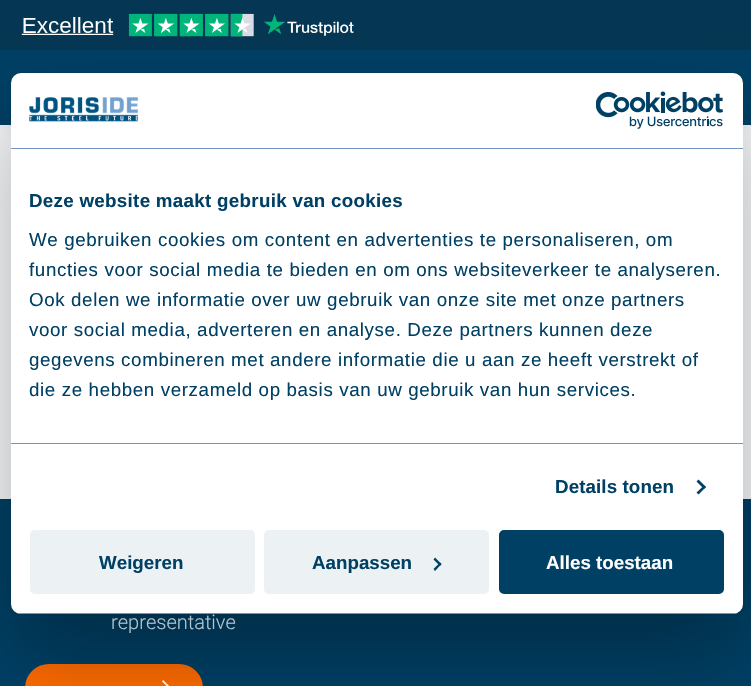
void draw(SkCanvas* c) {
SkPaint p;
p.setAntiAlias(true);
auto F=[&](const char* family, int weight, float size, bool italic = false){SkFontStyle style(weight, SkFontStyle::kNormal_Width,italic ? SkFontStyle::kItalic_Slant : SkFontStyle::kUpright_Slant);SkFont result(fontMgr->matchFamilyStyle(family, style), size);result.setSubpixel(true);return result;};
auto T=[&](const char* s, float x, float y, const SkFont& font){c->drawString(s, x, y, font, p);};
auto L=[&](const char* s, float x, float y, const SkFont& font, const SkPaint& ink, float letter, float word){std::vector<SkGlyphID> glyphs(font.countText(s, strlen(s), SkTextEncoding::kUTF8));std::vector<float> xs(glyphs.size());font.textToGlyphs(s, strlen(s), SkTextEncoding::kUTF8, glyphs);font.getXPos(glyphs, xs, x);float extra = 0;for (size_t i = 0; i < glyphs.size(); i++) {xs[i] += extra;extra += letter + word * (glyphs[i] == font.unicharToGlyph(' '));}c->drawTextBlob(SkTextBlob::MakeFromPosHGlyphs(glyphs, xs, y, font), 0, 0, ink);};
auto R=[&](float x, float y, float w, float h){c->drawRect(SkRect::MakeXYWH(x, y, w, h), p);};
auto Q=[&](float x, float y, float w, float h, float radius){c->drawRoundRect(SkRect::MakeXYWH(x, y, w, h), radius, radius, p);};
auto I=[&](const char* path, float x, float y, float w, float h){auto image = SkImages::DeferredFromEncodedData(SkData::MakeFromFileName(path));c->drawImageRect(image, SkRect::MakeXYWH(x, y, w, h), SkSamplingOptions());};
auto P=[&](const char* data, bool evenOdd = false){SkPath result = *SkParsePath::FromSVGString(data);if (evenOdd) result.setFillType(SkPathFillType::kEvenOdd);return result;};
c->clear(0xfff8f9fc);
p.setColor(0xbf000000);
p.setMaskFilter(SkMaskFilter::MakeBlur(kNormal_SkBlurStyle, 9.5));
c->drawRect(SkRect::MakeXYWH(19,31,714,88),p);
p.setMaskFilter(nullptr);
p.setColor(0xff004065);
R(0,50,751,75);
p.setColor(0xff053754);
R(0,0,751,50);
I("1.png",21,13,333,24);
p.setColor(0xff004065);
R(0,499,751,187);
p.setColor(0xffff6b00);
Q(25,664,178,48,26);
I("4.png",162,680,7,6);
p.setColor(0x4d000000);
p.setMaskFilter(SkMaskFilter::MakeBlur(kNormal_SkBlurStyle, 42.5));
c->drawRoundRect(SkRect::MakeXYWH(11,113,732,541),10,10,p);
p.setMaskFilter(nullptr);
p.setColor(0xffffffff);
Q(11,73,732,541,10);
p.setColor(0xff7495c1);
R(11,148,732,1);
I("2.png",29,97,110,25);
I("3.png",596,91,127,38);
R(11,443,732,1);
auto f1 = F("Liberation Sans",700,18.75);
p.setColor(0xff004065);
L("Deze website maakt gebruik van cookies",29,207,f1,p,.3,0);
auto f2 = F("Liberation Sans",400,18.75);
L("We gebruiken cookies om content en advertenties te personaliseren, om",29,246,f2,p,.62,0);
L("functies voor social media te bieden en om ons websiteverkeer te analyseren.",29,276,f2,p,.62,0);
L("Ook delen we informatie over uw gebruik van onze site met onze partners",29,306,f2,p,.62,0);
L("voor social media, adverteren en analyse. Deze partners kunnen deze",29,336,f2,p,.62,0);
L("gegevens combineren met andere informatie die u aan ze heeft verstrekt of",29,366,f2,p,.62,0);
L("die ze hebben verzameld op basis van uw gebruik van hun services.",29,396,f2,p,.62,0);
L("Details tonen",555,493,f1,p,.1,0);
c->drawPath(P("M698.5 479.5l7.5 7.5l-2 2l-7.5-7.5z"),p);
c->drawPath(P("M704 485.5l2 1.5l-7.5 7.5l-2-2z"),p);
c->save();
c->clipPath(P("M21 73h712c5.5 0 10 4.5 10 10v521c0 5.5-4.5 10-10 10h-712c-5.5 0-10-4.5-10-10v-521c0-5.5 4.5-10 10-10z"),true);
p.setColor(0xff7495c1);
R(11,613,732,1);
c->restore();
p.setColor(0xffecf1f4);
c->drawRoundRect(SkRect::MakeXYWH(31.5,531.5,222,61),3.5,3.5,p);
p.setStroke(true);
p.setStrokeWidth(3);
c->drawRoundRect(SkRect::MakeXYWH(31.5,531.5,222,61),3.5,3.5,p);
p.setStroke(false);
p.setColor(0xff004065);
T("Weigeren",99,569,f1);
p.setColor(0xffecf1f4);
c->drawRoundRect(SkRect::MakeXYWH(265.5,531.5,222,61),3.5,3.5,p);
p.setStroke(true);
c->drawRoundRect(SkRect::MakeXYWH(265.5,531.5,222,61),3.5,3.5,p);
p.setStroke(false);
p.setColor(0xff004065);
T("Aanpassen",312,569,f1);
c->drawPath(P("M435 557.5l6.5 6.5l-1.5 2l-6.5-6.5z"),p);
c->drawPath(P("M440 562.5l1.5 1.5l-6.5 7l-1.5-2z"),p);
c->drawRoundRect(SkRect::MakeXYWH(500.5,531.5,222,61),3.5,3.5,p);
p.setStroke(true);
c->drawRoundRect(SkRect::MakeXYWH(500.5,531.5,222,61),3.5,3.5,p);
p.setStroke(false);
p.setColor(0xffffffff);
T("Alles toestaan",546,569,f1);
auto f3 = F("Roboto",300,20);
p.setColor(0xffb2c6d1);
T("representative",111,629,f3);
}
